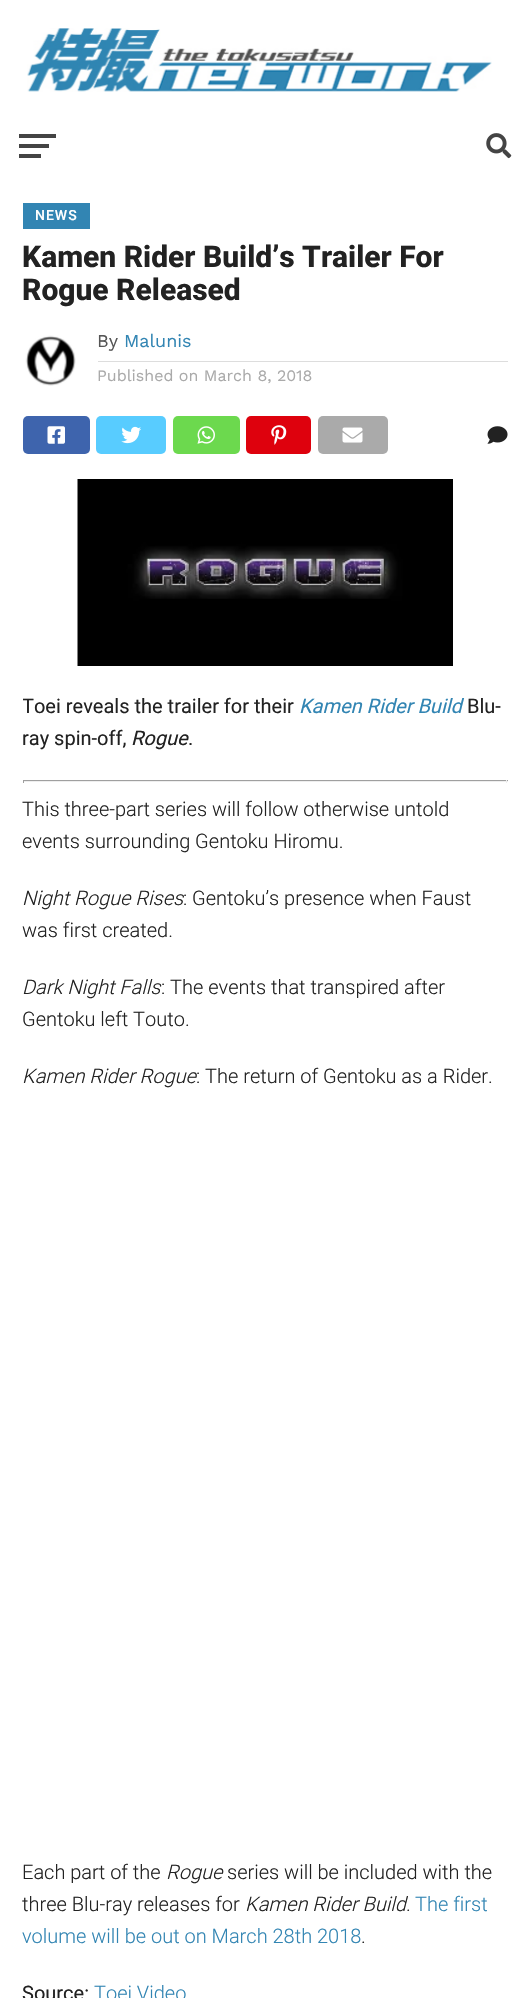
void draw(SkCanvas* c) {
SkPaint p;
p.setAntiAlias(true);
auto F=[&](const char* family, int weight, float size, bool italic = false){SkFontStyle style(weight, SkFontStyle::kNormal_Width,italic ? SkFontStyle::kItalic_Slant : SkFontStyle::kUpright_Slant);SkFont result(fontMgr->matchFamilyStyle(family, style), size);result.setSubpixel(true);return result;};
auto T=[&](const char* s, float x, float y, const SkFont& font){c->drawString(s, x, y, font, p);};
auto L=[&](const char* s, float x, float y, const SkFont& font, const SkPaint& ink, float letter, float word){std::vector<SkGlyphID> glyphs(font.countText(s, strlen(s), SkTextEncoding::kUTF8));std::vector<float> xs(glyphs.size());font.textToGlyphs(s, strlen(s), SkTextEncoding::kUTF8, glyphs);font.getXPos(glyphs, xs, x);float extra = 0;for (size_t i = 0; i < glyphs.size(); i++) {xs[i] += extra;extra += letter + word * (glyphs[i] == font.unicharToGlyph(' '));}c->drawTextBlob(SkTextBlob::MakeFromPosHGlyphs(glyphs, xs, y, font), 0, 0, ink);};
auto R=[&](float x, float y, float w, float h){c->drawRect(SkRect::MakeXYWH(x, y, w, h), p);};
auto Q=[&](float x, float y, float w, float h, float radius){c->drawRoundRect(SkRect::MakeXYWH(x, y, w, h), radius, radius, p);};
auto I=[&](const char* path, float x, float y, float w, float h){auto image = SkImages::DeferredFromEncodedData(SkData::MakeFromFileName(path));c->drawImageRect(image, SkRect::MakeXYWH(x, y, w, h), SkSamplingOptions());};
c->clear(0xffffffff);
I("1.png",27,28,465,64);
p.setColor(0xff444444);
R(19,134,37,4);
R(19,144,30,4);
R(19,154,22,4);
I("2.png",486,133,26,26);
p.setColor(0xff3285b3);
R(23,203,67,26);
auto f1 = F("Roboto",500,14);
p.setColor(0xffffffff);
L("NEWS",35,220,f1,p,1,0);
auto f2 = F("Roboto",800,30);
p.setColor(0xff222222);
T("Kamen Rider Build’s Trailer For",22,267,f2);
T("Rogue Released",22,300,f2);
I("3.png",25,335,51,51);
p.setColor(0xffdddddd);
R(98,361,410,1);
auto f3 = F("Work Sans",400,18);
p.setColor(0xff555555);
T("By",97,347,f3);
p.setColor(0xff3285b3);
T("Malunis",124,347,f3);
auto f4 = F("Work Sans",400,16);
p.setColor(0xffaaaaaa);
T("Published on March 8, 2018",97,381,f4);
p.setColor(0xff3e64ad);
Q(23,416,67,38,5);
I("4.png",47,426,18,18);
p.setColor(0xff58ccff);
Q(96,416,70,38,5);
I("5.png",121,426,20,18);
p.setColor(0xff6cd94e);
Q(173,416,67,38,5);
I("6.png",197,426,18,18);
p.setColor(0xffde010d);
Q(246,416,65,38,5);
I("7.png",271,425,16,20);
p.setColor(0xffaaaaaa);
Q(318,416,70,38,5);
I("8.png",342,427,21,16);
I("9.png",487,426,21,18);
I("10.png",77,479,376,187);
c->save();
c->clipRect(SkRect::MakeXYWH(23,479,485,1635));
auto f5 = F("Roboto",400,20);
p.setColor(0xff222222);
T("Toei reveals the trailer for their",22,713,f5);
c->restore();
auto f6 = F("Roboto",400,20,true);
p.setColor(0xff3285b3);
T("Kamen Rider Build",299,713,f6);
p.setColor(0xff222222);
T("Blu-",467,713,f5);
T("ray spin-off,",22,745,f5);
T("Rogue",131,745,f6);
T(".",188,745,f5);
p.setColor(0xff9f9f9f);
R(23,780,485,1);
p.setColor(0xffeeeeee);
R(506,780,1,3);
R(23,781,485,1);
p.setColor(0xff9f9f9f);
R(23,780,1,3);
auto f7 = F("Roboto",300,20);
p.setColor(0xff222222);
T("This three-part series will follow otherwise untold",22,816,f7);
T("events surrounding Gentoku Hiromu.",22,848,f7);
auto f8 = F("Roboto",300,20,true);
T("Night Rogue Rises",22,905,f8);
T(": Gentoku’s presence when Faust",183,905,f7);
T("was first created.",22,937,f7);
T("Dark Night Falls",22,994,f8);
T(": The events that transpired after",161,994,f7);
T("Gentoku left Touto.",22,1026,f7);
T("Kamen Rider Rogue",22,1083,f8);
T(": The return of Gentoku as a Rider.",196,1083,f7);
T("Each part of the",22,1879,f7);
T("Rogue",166,1879,f8);
T("series will be included with the",227,1879,f7);
T("three Blu-ray releases for",22,1911,f7);
T("Kamen Rider Build",245,1911,f8);
p.setColor(0xff3285b3);
T("The first",415,1911,f7);
p.setColor(0xff222222);
T(".",406,1911,f7);
p.setColor(0xff3285b3);
T("volume will be out on March 28th 2018",22,1943,f7);
p.setColor(0xff222222);
T(".",361,1943,f7);
T("Source:",22,2000,f5);
p.setColor(0xff3285b3);
T("Toei Video",94,2000,f7);
}
